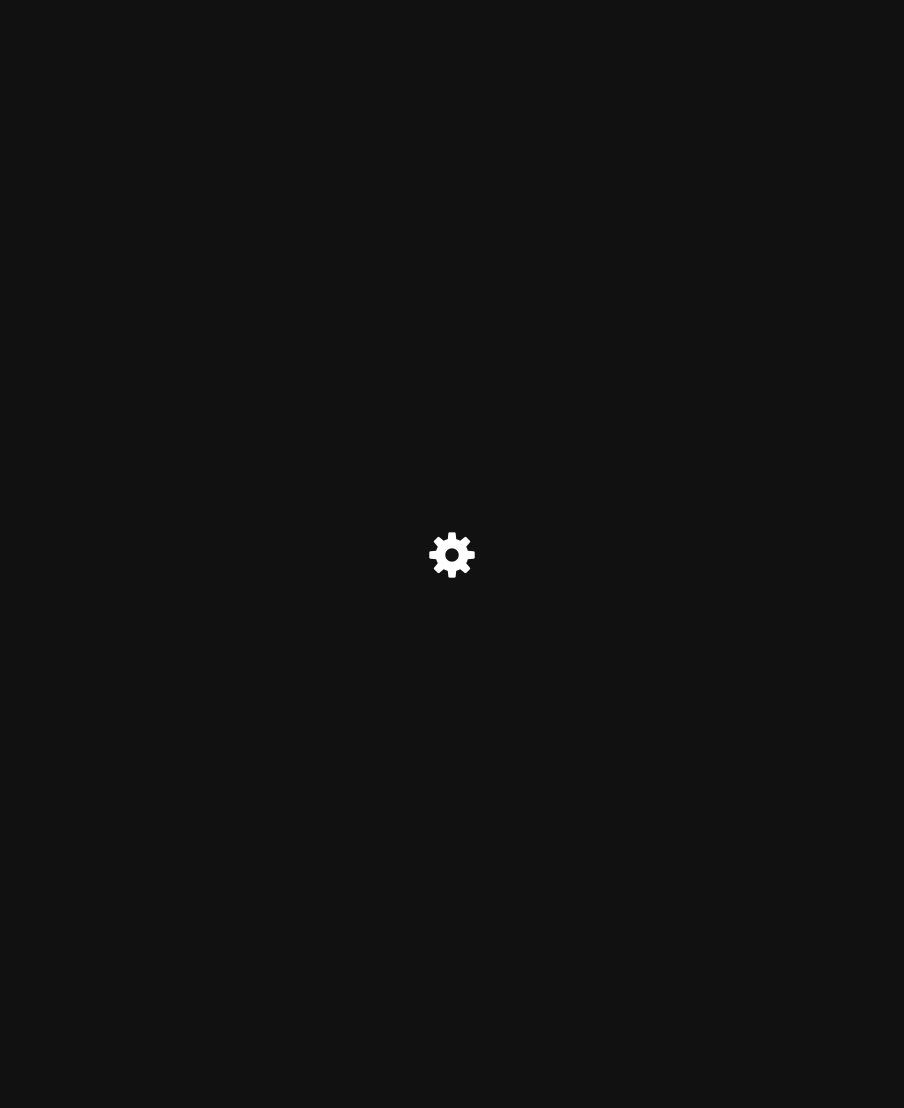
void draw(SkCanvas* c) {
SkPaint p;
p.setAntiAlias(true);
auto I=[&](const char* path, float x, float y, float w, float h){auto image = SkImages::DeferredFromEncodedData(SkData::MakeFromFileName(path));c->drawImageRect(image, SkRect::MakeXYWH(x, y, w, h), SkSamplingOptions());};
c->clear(0xff111111);
I("1.png",429,532,46,46);
}
